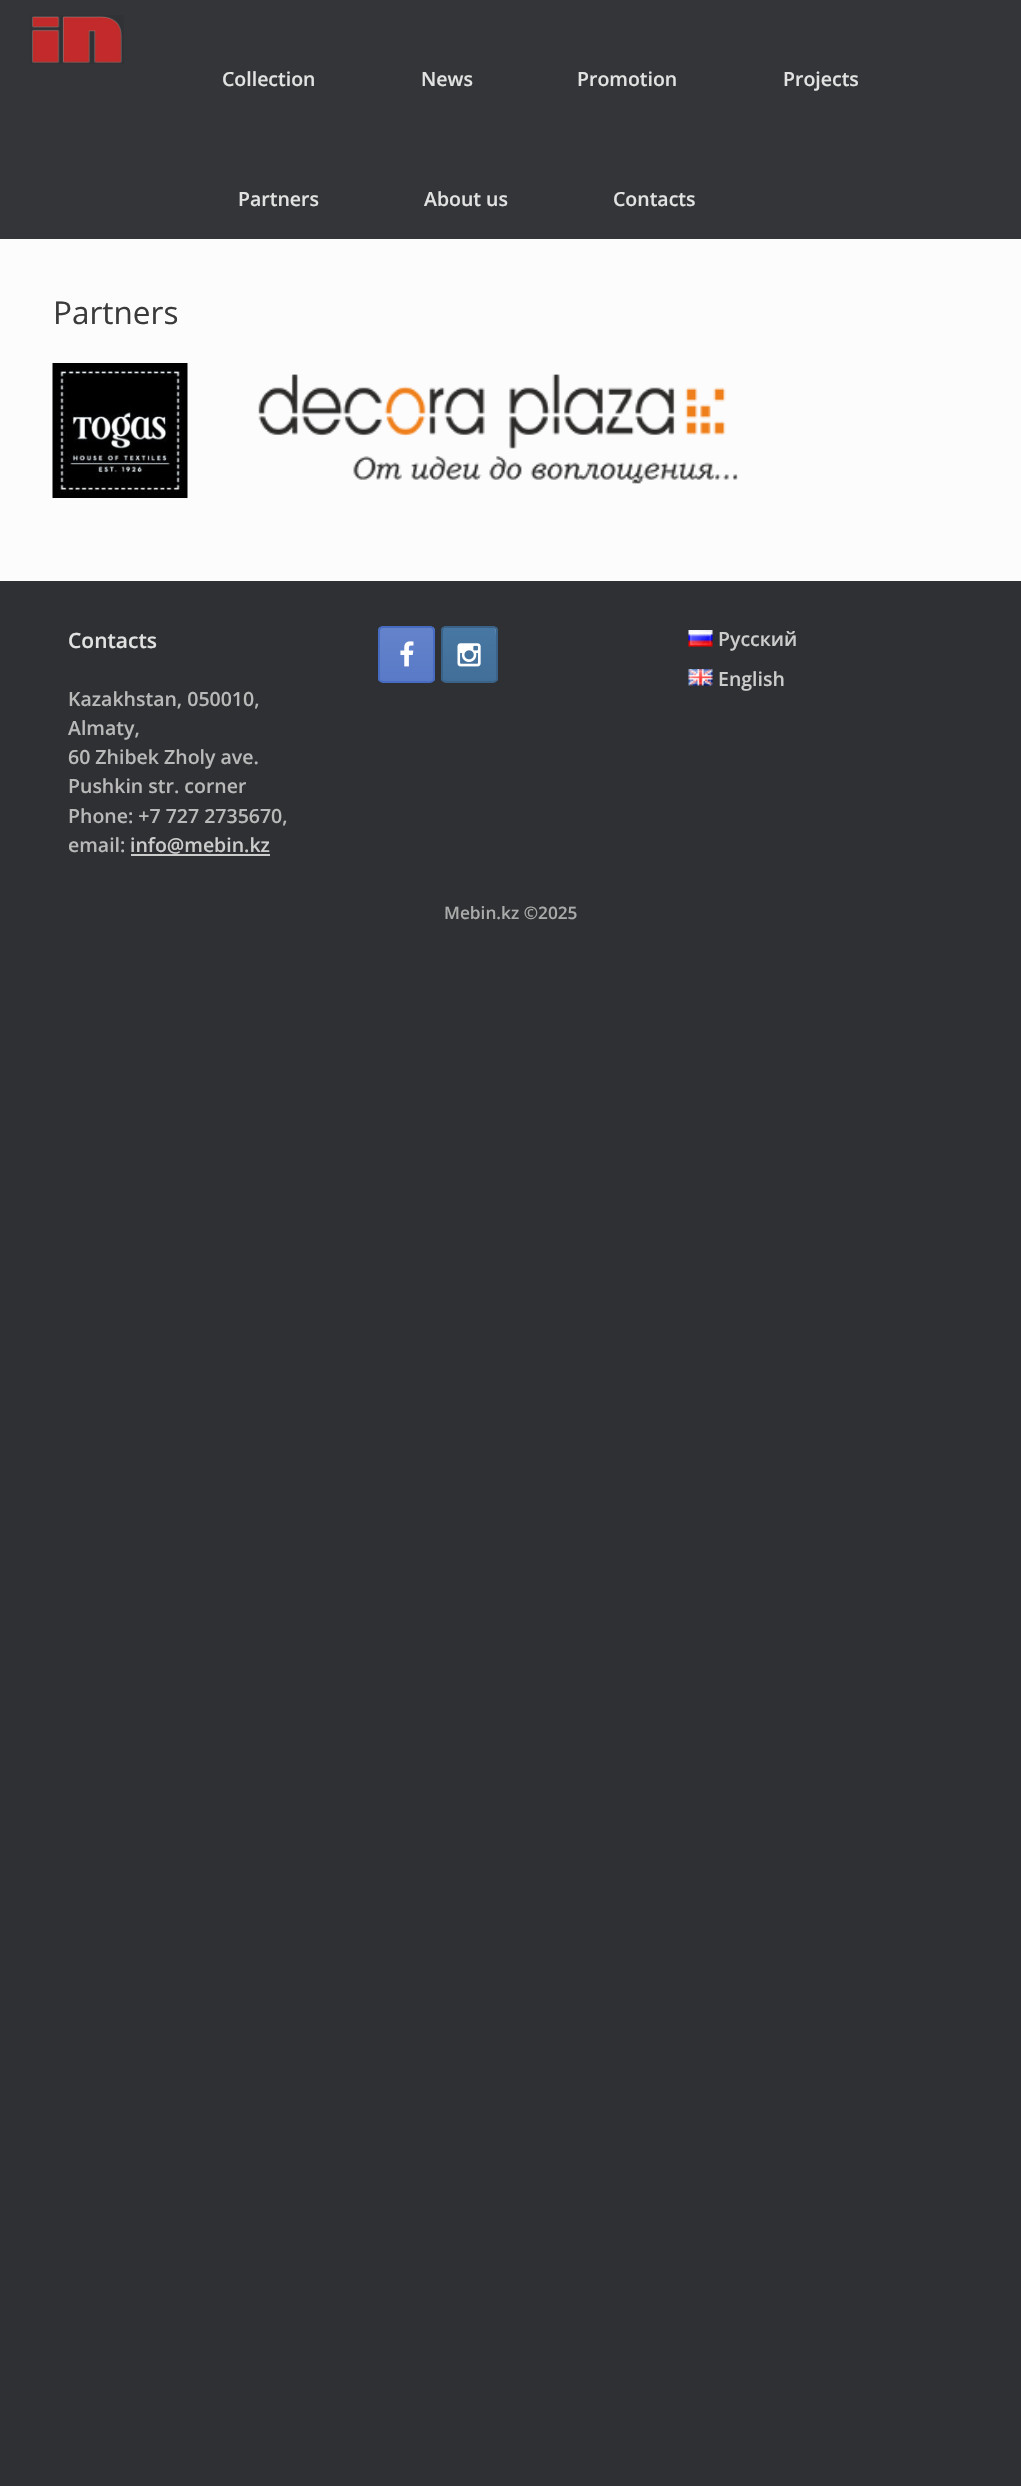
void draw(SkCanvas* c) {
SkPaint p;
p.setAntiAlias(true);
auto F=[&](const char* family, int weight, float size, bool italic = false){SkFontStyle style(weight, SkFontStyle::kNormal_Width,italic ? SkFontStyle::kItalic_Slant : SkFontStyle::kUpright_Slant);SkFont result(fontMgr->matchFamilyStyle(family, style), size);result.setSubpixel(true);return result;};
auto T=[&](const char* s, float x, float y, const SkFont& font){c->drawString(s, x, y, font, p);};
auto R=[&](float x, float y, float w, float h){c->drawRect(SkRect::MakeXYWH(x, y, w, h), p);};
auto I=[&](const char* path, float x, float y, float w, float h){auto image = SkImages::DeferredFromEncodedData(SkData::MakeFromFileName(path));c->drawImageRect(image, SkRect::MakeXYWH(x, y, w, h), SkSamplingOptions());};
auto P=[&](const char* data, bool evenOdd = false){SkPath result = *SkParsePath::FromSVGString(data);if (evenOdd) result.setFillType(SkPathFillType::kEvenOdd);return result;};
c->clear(0xff2f3033);
p.setColor(0xff343538);
R(0,0,1021,239);
I("1.png",30,15,94,49);
auto f1 = F("Open Sans",600,19.5);
p.setColor(0xffe2e2e2);
T("Collection",222,86,f1);
T("News",421,86,f1);
T("Promotion",577,86,f1);
T("Projects",783,86,f1);
T("Partners",238,206,f1);
T("About us",424,206,f1);
T("Contacts",613,206,f1);
p.setColor(0xfffcfcfc);
R(0,239,1021,342);
auto f2 = F("Open Sans",400,31.5);
p.setColor(0xff3b3b3b);
T("Partners",53,324,f2);
I("2.png",52,363,136,135);
I("3.png",258,374,480,110);
auto f3 = F("Open Sans",600,21);
p.setColor(0xffe2e2e2);
T("Contacts",68,648,f3);
p.setColor(0xffb9b9b9);
T("Kazakhstan, 050010,",68,706,f1);
T("Almaty,",68,735,f1);
T("60 Zhibek Zholy ave.",68,764,f1);
T("Pushkin str. corner",68,793,f1);
T("Phone: +7 727 2735670,",68,823,f1);
T("email:",68,852,f1);
p.setColor(0xffcccccc);
T("info@mebin.kz",130,852,f1);
R(131,854,139,2);
c->save();
c->clipPath(P("M383 626h47c3 0 5 2 5 5v47c0 3-2 5-5 5h-47c-3 0-5-2-5-5v-47c0-3 2-5 5-5z"),true);
{
const SkColor colors[] = {0xff597ac7,0xff6483cb};
const float stops[] = {0,1};
const SkPoint ends[] = {{380,681}, {380,627}};
p.setShader(SkGradientShader::MakeLinear(ends, colors, stops, 2, SkTileMode::kClamp));
p.setAlpha(255);
}
R(378,627,57,54);
c->restore();
p.setStroke(true);
p.setStrokeWidth(2);
p.setShader(nullptr);
p.setColor(0xff466bc1);
c->drawRoundRect(SkRect::MakeXYWH(379,627,55,55),4,4,p);
I("4.png",400,641,14,26);
c->save();
c->clipPath(P("M446 626h47c3 0 5 2 5 5v47c0 3-2 5-5 5h-47c-3 0-5-2-5-5v-47c0-3 2-5 5-5z"),true);
p.setStroke(false);
{
const SkColor colors[] = {0xff426f98,0xff4777a3};
const float stops[] = {0,1};
const SkPoint ends[] = {{443,681}, {443,627}};
p.setShader(SkGradientShader::MakeLinear(ends, colors, stops, 2, SkTileMode::kClamp));
p.setAlpha(255);
}
R(441,627,57,54);
c->restore();
p.setShader(nullptr);
p.setColor(0x33ffffff);
c->drawPath(P("M446 628h48c3 2 2 18 2 20v32c1 0 1-1 1-2v-48c0-2-1-3-3-3h-48c-1 0-3 1-3 2z"),p);
p.setStroke(true);
p.setColor(0xff3a6286);
c->drawRoundRect(SkRect::MakeXYWH(442,627,55,55),4,4,p);
I("5.png",457,643,24,24);
I("6.png",688,630,25,17);
p.setStroke(false);
p.setColor(0xffcccccc);
T("Русский",718,646,f1);
I("7.png",688,669,25,17);
T("English",718,686,f1);
auto f4 = F("Open Sans",600,17.25);
p.setColor(0xffaaaaaa);
T("Mebin.kz ©2025",444,919,f4);
}
